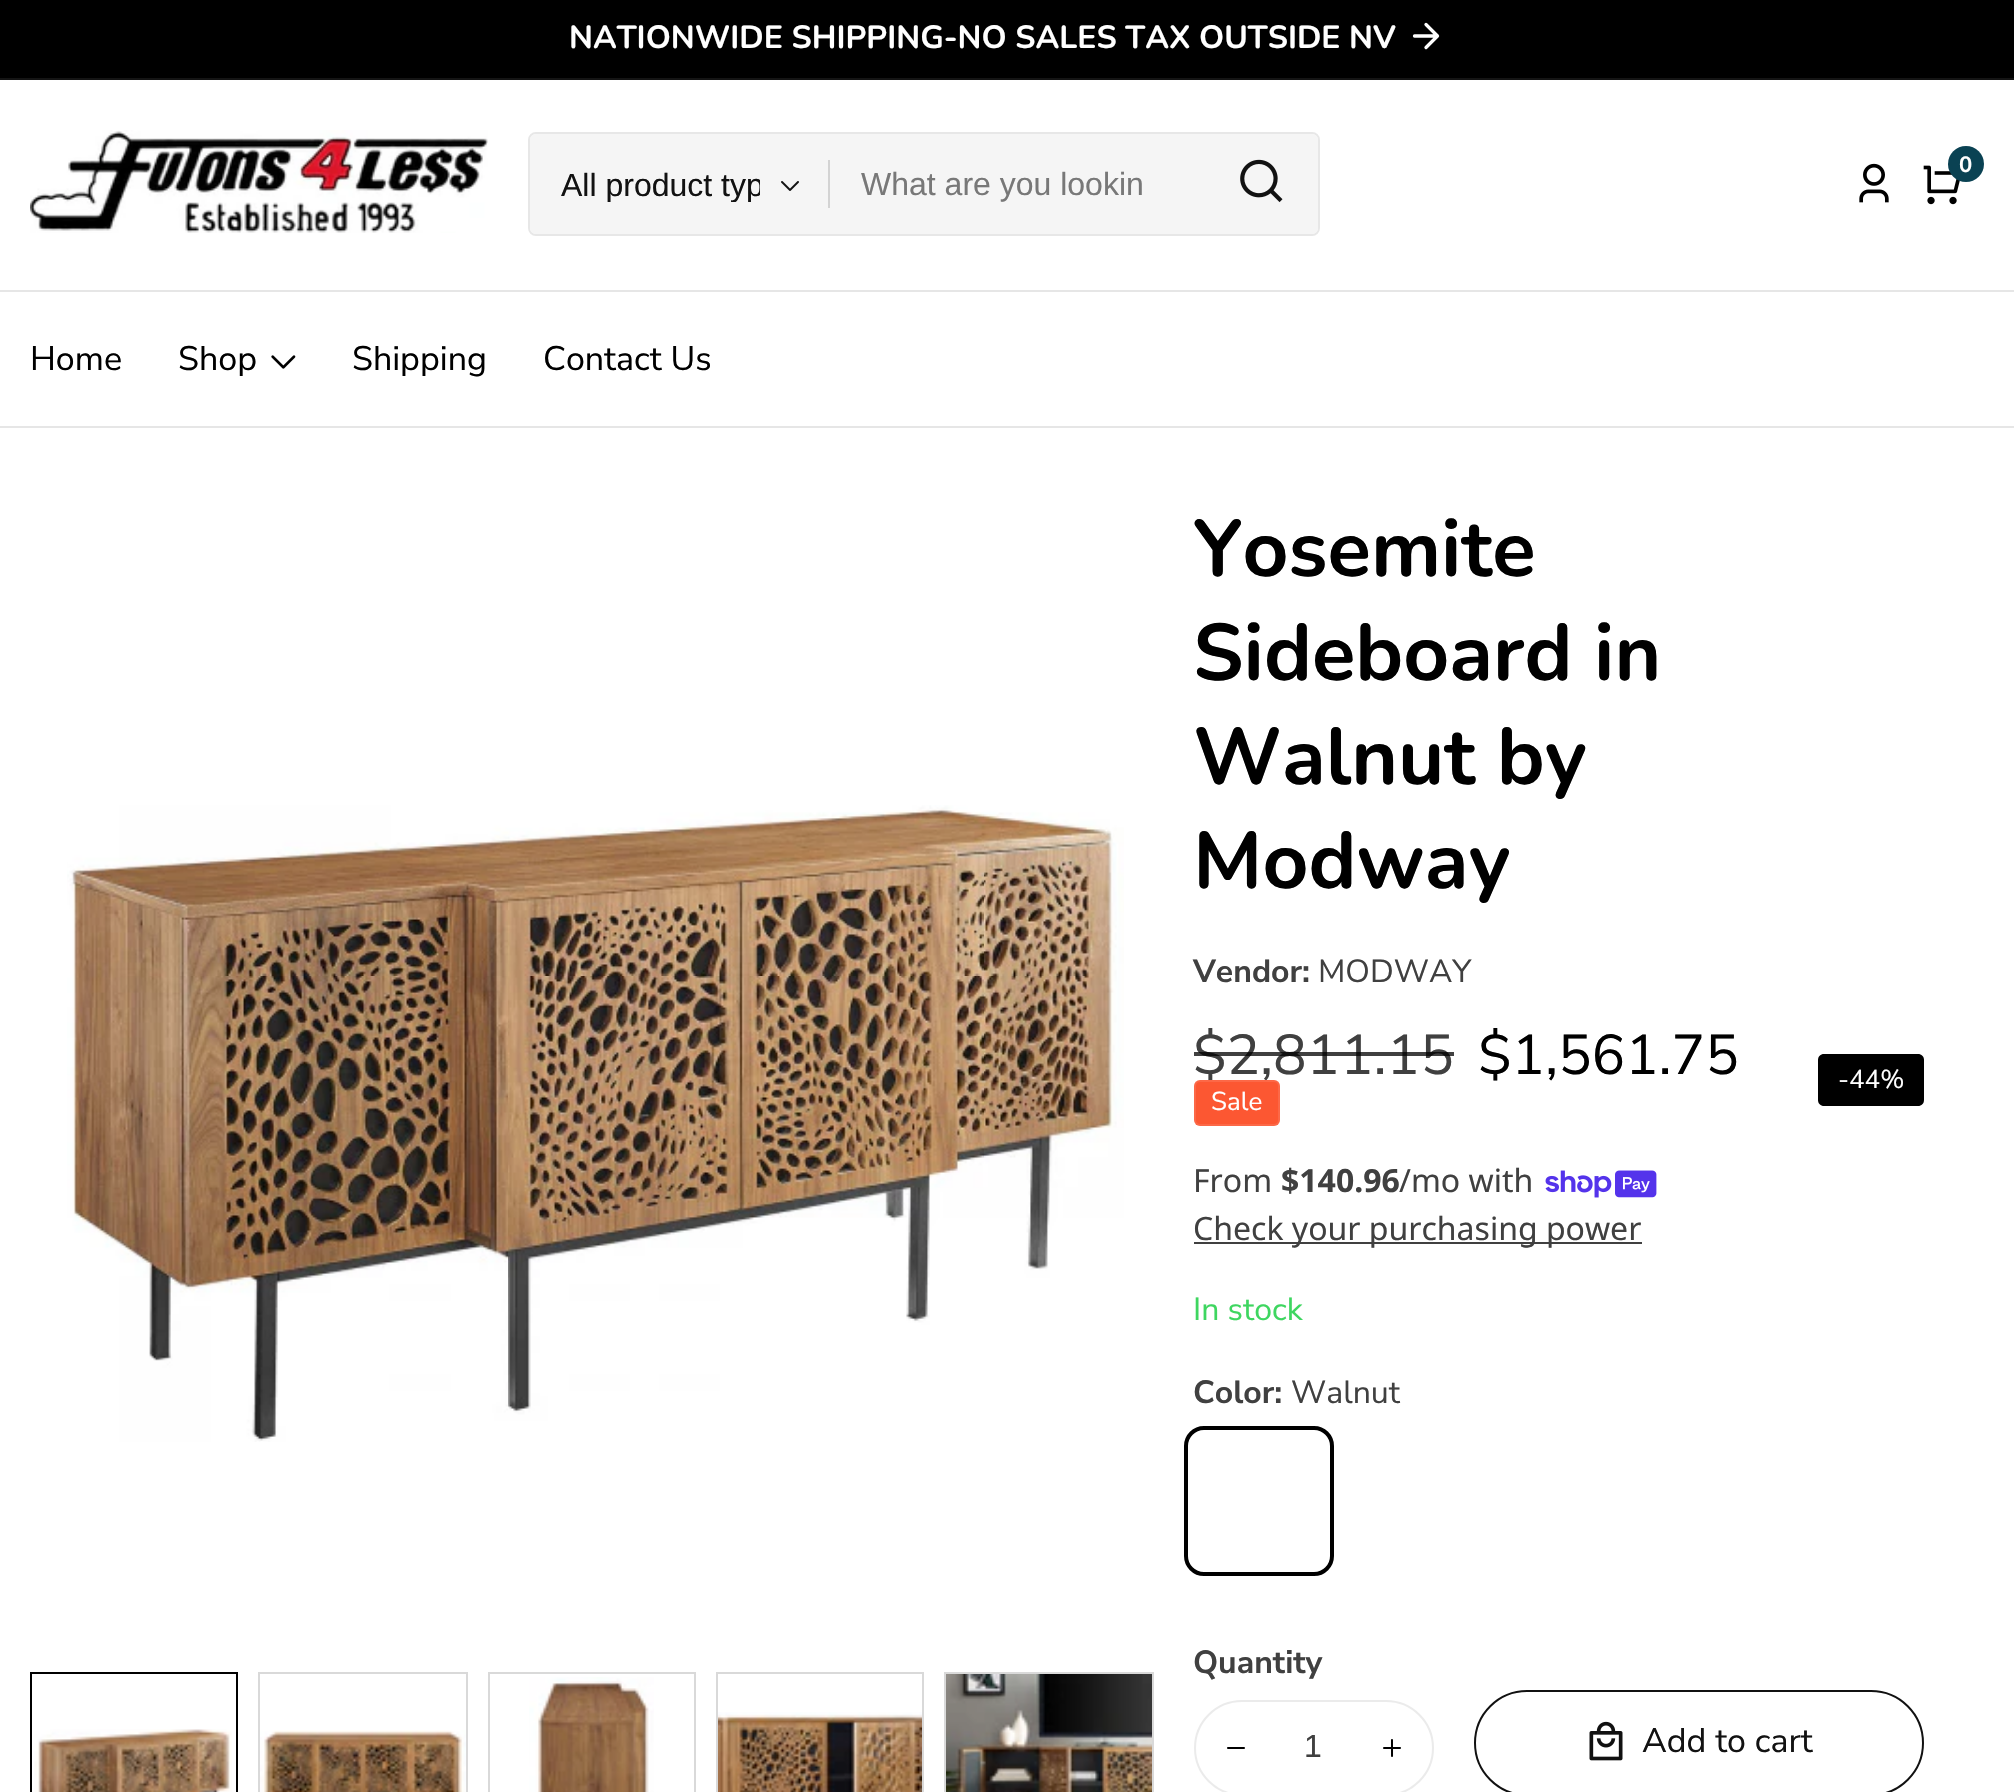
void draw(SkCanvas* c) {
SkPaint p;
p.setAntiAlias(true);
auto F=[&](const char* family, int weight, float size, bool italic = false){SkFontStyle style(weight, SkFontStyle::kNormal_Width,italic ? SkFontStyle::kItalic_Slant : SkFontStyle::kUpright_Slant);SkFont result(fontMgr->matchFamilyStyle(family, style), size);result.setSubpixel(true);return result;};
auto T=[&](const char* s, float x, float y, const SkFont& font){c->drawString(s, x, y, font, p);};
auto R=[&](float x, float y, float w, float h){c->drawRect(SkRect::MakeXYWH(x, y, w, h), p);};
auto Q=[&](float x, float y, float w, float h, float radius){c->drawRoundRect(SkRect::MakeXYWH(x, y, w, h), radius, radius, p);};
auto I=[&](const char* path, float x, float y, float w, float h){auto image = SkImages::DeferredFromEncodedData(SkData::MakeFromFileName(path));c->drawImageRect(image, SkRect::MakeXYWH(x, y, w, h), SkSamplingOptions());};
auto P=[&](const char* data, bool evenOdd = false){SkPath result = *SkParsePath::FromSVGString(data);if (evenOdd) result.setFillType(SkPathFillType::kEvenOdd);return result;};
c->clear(0xffffffff);
p.setColor(0xff000000);
R(0,0,2014,78);
p.setColor(0xff141414);
R(0,78,2014,2);
auto f1 = F("Nunito",700,32);
p.setColor(0xffffffff);
T("NATIONWIDE SHIPPING-NO SALES TAX OUTSIDE NV",569,48,f1);
p.setStroke(true);
p.setStrokeWidth(3.3);
p.setStrokeCap(SkPaint::kRound_Cap);
p.setStrokeJoin(SkPaint::kRound_Join);
c->drawPath(P("M1414.5 36h23m-11.5-11.5l11.5 11.5l-11.5 11.5"),p);
I("1.png",30,130,458,103);
I("2.png",1859,163,30,40);
I("3.png",1923,165,37,40);
p.setStroke(false);
p.setColor(0xff0a4253);
c->drawCircle(1966,164,18,p);
auto f2 = F("Nunito Sans",700,22);
p.setColor(0xffffffff);
T("0",1959,172,f2);
p.setStroke(true);
p.setStrokeWidth(2);
p.setStrokeCap(SkPaint::kButt_Cap);
p.setStrokeJoin(SkPaint::kMiter_Join);
p.setColor(0xffe7e7e7);
c->drawRoundRect(SkRect::MakeXYWH(529,133,790,102),7,7,p);
p.setStroke(false);
p.setColor(0xfff5f5f5);
c->drawPath(P("M536 134h294v100h-294c-3.5 0-6-2.5-6-6v-88c0-3.5 2.5-6 6-6z"),p);
c->save();
c->clipRect(SkRect::MakeXYWH(560,168,200,34));
auto f3 = F("Liberation Sans",400,32);
p.setColor(0xff121212);
T("All product typ",561,196,f3);
c->restore();
I("4.png",781,181,18,10);
p.setColor(0xffd3d3d3);
R(828,160,2,48);
p.setColor(0xfff5f5f5);
c->drawPath(P("M830 134h482c3.5 0 6 2.5 6 6v88c0 3.5-2.5 6-6 6h-482z"),p);
p.setColor(0xff787878);
T("What are you lookin",861,195,f3);
I("5.png",1240,159,43,44);
p.setColor(0xffe6e6e6);
R(0,290,2014,2);
R(0,426,2014,2);
auto f4 = F("Nunito Sans",400,34);
p.setColor(0xff000000);
T("Home",30,370,f4);
T("Shop",178,370,f4);
I("6.png",271,355,25,14);
T("Shipping",352,370,f4);
T("Contact Us",543,370,f4);
I("7.png",67,805,1057,637);
p.setStroke(true);
c->drawRect(SkRect::MakeXYWH(31,1673,206,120),p);
I("8.png",34,1729,198,63);
p.setColor(0xffd9d9d9);
c->drawRect(SkRect::MakeXYWH(259,1673,208,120),p);
I("9.png",260,1730,206,62);
c->drawRect(SkRect::MakeXYWH(489,1673,206,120),p);
I("10.png",529,1677,125,115);
c->drawRect(SkRect::MakeXYWH(717,1673,206,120),p);
I("11.png",718,1712,204,80);
c->drawRect(SkRect::MakeXYWH(945,1673,208,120),p);
I("12.png",946,1674,206,118);
auto f5 = F("Nunito",700,80);
p.setStroke(false);
p.setColor(0xff000000);
T("Yosemite",1193,576,f5);
T("Sideboard in",1193,680,f5);
T("Walnut by",1193,784,f5);
T("Modway",1193,888,f5);
auto f6 = F("Nunito Sans",700,32);
p.setColor(0xff404040);
T("Vendor:",1193,982,f6);
auto f7 = F("Nunito Sans",400,32);
T("MODWAY",1318,982,f7);
auto f8 = F("Nunito Sans",400,56);
T("$2,811.15",1193,1074,f8);
p.setColor(0xbf000000);
R(1194,1052,260,4);
p.setColor(0xff000000);
T("$1,561.75",1478,1074,f8);
p.setColor(0xfffc5732);
Q(1194,1080,86,46,6);
p.setStroke(true);
p.setColor(0x1affffff);
c->drawRoundRect(SkRect::MakeXYWH(1195,1081,84,44),5,5,p);
auto f9 = F("Nunito Sans",400,26);
p.setStroke(false);
p.setColor(0xffffffff);
T("Sale",1211,1110,f9);
p.setColor(0xff000000);
c->drawPath(P("M1824 1054h24v52h-24c-3.5 0-6-2.5-6-6v-40c0-3.5 2.5-6 6-6z"),p);
R(1848,1054,32,52);
c->drawPath(P("M1880 1054h38c3.5 0 6 2.5 6 6v40c0 3.5-2.5 6-6 6h-38z"),p);
p.setColor(0xffffffff);
T("-44%",1838,1088,f9);
auto f10 = F("Noto Sans",400,32);
p.setColor(0xff404040);
T("From",1193,1192,f10);
auto f11 = F("Noto Sans",700,32);
T("$140.96",1281,1192,f11);
T("/mo with",1399,1192,f10);
I("13.png",1545,1170,112,28);
R(1194,1242,448,2);
T("Check your purchasing power",1193,1240,f10);
p.setColor(0xff3ed660);
T("In stock",1193,1320,f7);
p.setColor(0xff404040);
T("Color:",1193,1403,f6);
T("Walnut",1291,1403,f7);
p.setStroke(true);
p.setStrokeWidth(4);
p.setColor(0xff000000);
c->drawRoundRect(SkRect::MakeXYWH(1186,1428,146,146),18,18,p);
p.setStroke(false);
p.setColor(0xff404040);
T("Quantity",1193,1673,f6);
p.setStroke(true);
p.setStrokeWidth(2);
p.setColor(0xffebebeb);
c->drawRoundRect(SkRect::MakeXYWH(1195,1701,238,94),47,47,p);
I("14.png",1227,1747,18,2);
p.setStroke(false);
p.setColor(0xff404040);
T("1",1304,1757,f3);
I("15.png",1383,1739,18,18);
p.setStroke(true);
p.setColor(0xff111111);
c->drawRoundRect(SkRect::MakeXYWH(1475,1691,448,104),52,52,p);
I("16.png",1589,1721,34,40);
p.setStroke(false);
p.setColor(0xff121212);
T("Add to cart",1642,1752,f4);
}
